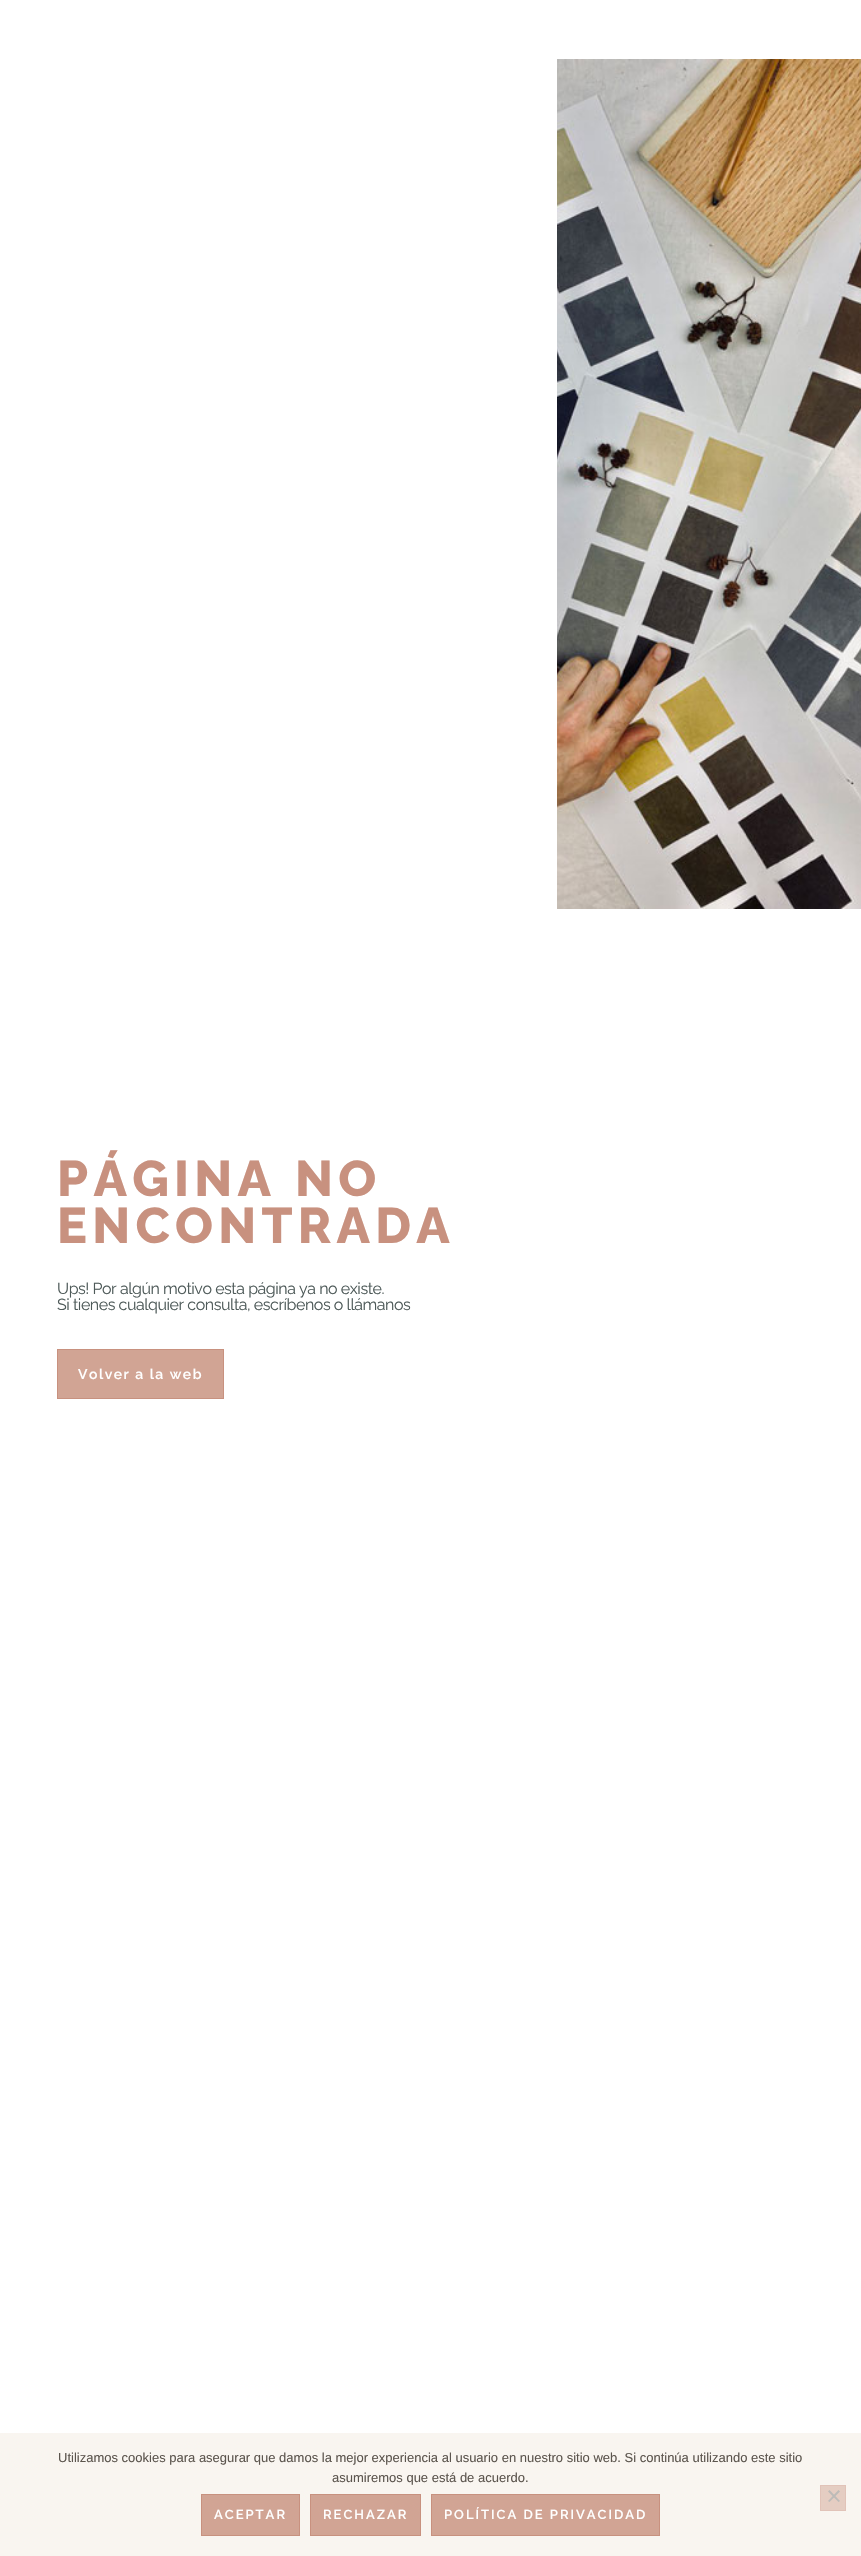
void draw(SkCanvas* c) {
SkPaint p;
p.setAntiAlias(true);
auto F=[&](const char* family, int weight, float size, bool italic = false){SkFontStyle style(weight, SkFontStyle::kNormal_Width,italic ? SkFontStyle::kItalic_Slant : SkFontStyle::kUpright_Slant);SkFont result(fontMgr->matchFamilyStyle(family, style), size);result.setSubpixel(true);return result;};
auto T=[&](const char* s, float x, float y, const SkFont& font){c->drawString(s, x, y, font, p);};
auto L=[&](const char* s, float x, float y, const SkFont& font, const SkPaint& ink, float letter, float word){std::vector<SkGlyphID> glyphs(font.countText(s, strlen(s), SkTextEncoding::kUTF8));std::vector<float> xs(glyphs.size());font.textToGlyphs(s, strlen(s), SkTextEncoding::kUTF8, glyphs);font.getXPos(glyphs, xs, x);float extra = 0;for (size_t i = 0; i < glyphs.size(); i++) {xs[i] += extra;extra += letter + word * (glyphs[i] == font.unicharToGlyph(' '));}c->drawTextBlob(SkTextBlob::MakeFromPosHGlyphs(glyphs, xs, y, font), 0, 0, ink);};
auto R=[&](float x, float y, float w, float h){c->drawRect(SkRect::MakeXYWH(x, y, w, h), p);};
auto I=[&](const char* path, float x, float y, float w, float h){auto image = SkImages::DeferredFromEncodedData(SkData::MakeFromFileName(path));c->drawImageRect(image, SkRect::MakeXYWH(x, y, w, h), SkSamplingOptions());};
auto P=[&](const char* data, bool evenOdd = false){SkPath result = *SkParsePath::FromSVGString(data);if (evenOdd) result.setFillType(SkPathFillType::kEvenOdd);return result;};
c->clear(0xffffffff);
I("1.png",557,59,304,850);
auto f1 = F("Raleway",800,50);
p.setColor(0xffc8917f);
L("PÁGINA NO",57,1196,f1,p,5.25,2);
L("ENCONTRADA",57,1243,f1,p,5.25,0);
auto f2 = F("Raleway",400,16);
p.setColor(0xff4e5a59);
L("Ups! Por algún motivo esta página ya no existe.",57,1294,f2,p,-.45,0);
L("Si tienes cualquier consulta, escríbenos o llámanos",57,1310,f2,p,-.45,0);
p.setColor(0xffd1a494);
c->drawRect(SkRect::MakeXYWH(57.5,1349.5,166,49),p);
p.setStroke(true);
p.setStrokeWidth(1);
p.setColor(0xffc8917f);
c->drawRect(SkRect::MakeXYWH(57.5,1349.5,166,49),p);
auto f3 = F("Raleway",600,14);
p.setStroke(false);
p.setColor(0xffffffff);
L("Volver a la web",78,1379,f3,p,1.5,0);
p.setColor(0xfff9f5f0);
R(0,2433,861,123);
auto f4 = F("Liberation Sans",400,13);
p.setColor(0xff5c554e);
T("Utilizamos cookies para asegurar que damos la mejor experiencia al usuario en nuestro sitio web. Si continúa utilizando este sitio",58,2462,f4);
T("asumiremos que está de acuerdo.",332,2482,f4);
p.setColor(0xffe5cdc2);
c->drawRect(SkRect::MakeXYWH(820.5,2485.5,25,25),p);
p.setStroke(true);
p.setColor(0xffe1c3b8);
c->drawRect(SkRect::MakeXYWH(820.5,2485.5,25,25),p);
p.setStroke(false);
p.setColor(0xffbdbbb8);
c->drawPath(P("M838.5 2490l1.5 1.5l-10.5 10.5l-1.5-1z"),p);
c->drawPath(P("M828 2491.5l1.5-1.5l10.5 11l-1.5 1z"),p);
p.setColor(0xffd1a494);
c->drawRect(SkRect::MakeXYWH(201.5,2494.5,98,41),p);
p.setStroke(true);
p.setColor(0xffc8917f);
c->drawRect(SkRect::MakeXYWH(201.5,2494.5,98,41),p);
auto f5 = F("Raleway",600,13);
p.setStroke(false);
p.setColor(0xffffffff);
L("ACEPTAR",214,2519,f5,p,2,0);
p.setColor(0xffd1a494);
c->drawRect(SkRect::MakeXYWH(310.5,2494.5,110,41),p);
p.setStroke(true);
p.setColor(0xffc8917f);
c->drawRect(SkRect::MakeXYWH(310.5,2494.5,110,41),p);
p.setStroke(false);
p.setColor(0xffffffff);
L("RECHAZAR",323,2519,f5,p,2,0);
p.setColor(0xffd1a494);
c->drawRect(SkRect::MakeXYWH(431.5,2494.5,228,41),p);
p.setStroke(true);
p.setColor(0xffc8917f);
c->drawRect(SkRect::MakeXYWH(431.5,2494.5,228,41),p);
p.setStroke(false);
p.setColor(0xffffffff);
L("POLÍTICA DE PRIVACIDAD",444,2519,f5,p,2,0);
}
